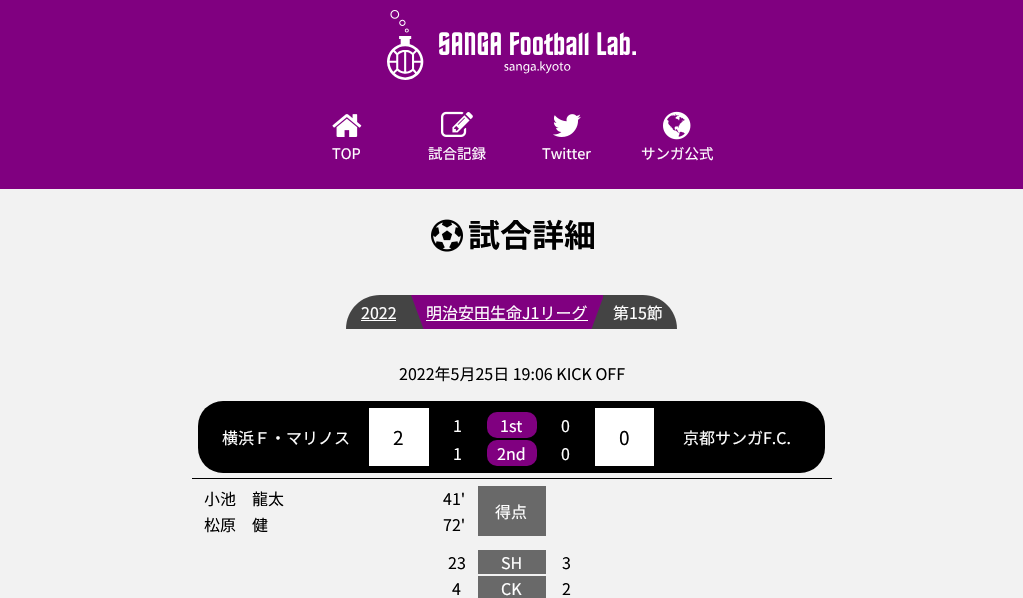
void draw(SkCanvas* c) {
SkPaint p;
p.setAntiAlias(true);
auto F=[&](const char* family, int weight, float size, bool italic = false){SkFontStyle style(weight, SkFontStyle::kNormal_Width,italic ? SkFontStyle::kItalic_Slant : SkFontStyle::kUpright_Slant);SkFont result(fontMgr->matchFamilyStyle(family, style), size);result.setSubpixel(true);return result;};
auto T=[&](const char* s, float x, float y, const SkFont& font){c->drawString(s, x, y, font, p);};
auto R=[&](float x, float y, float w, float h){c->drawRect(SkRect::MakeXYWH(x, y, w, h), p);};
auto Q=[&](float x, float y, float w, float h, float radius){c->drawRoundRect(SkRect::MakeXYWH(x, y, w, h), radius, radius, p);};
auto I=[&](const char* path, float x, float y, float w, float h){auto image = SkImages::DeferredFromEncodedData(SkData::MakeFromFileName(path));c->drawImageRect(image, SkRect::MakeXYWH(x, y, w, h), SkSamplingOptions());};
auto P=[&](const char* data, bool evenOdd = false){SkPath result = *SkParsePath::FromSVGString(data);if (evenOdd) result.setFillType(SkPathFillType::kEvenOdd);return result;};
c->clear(0xfff2f2f2);
p.setColor(0xff800080);
R(0,0,1023,189);
I("1.png",387,10,249,70);
I("2.png",332,114,30,23);
auto f1 = F("Noto Sans JP",400,14.5);
p.setColor(0xffffffff);
T("TOP",332,159,f1);
I("3.png",441,111,32,26);
T("試合記録",428,159,f1);
I("4.png",553,114,28,23);
T("Twitter",542,159,f1);
I("5.png",663,111,28,29);
T("サンガ公式",641,159,f1);
I("6.png",431,219,32,33);
auto f2 = F("Noto Sans JP",700,32);
p.setColor(0xff000000);
T("試合詳細",468,247,f2);
c->save();
c->clipPath(P("M380 295h263c19 0 34 15 34 34h-331c0-19 15-34 34-34z"),true);
p.setColor(0xff444444);
R(346,295,58,34);
c->restore();
auto f3 = F("Noto Sans JP",400,16);
p.setColor(0xffffffff);
T("2022",361,319,f3);
R(361,320,35,1);
p.setColor(0xff800080);
R(411,295,192,34);
p.setColor(0xff444444);
c->drawPath(P("M391 295h20l12.5 34h-20z"),p);
p.setColor(0xffffffff);
R(426,320,162,1);
T("明治安田生命J1リーグ",426,319,f3);
c->save();
c->clipRect(SkRect::MakeXYWH(411,295,192,34));
p.setColor(0xff444444);
c->drawPath(P("M604 295h20l-12.5 34h-20z"),p);
c->restore();
c->save();
c->clipPath(P("M380 295h263c19 0 34 15 34 34h-331c0-19 15-34 34-34z"),true);
R(603,295,74,34);
c->restore();
p.setColor(0xffffffff);
T("第15節",613,319,f3);
p.setColor(0xff000000);
T("2022年5月25日 19:06 KICK OFF",399,380,f3);
Q(198,401,627,72,25);
p.setColor(0xffffffff);
T("1",453,432,f3);
p.setColor(0xff800080);
Q(487,412,50,26,10);
p.setColor(0xffffffff);
T("1st",500,432,f3);
T("0",561,432,f3);
T("横浜Ｆ・マリノス",222,444,f3);
R(369,408,60,58);
auto f4 = F("Noto Sans JP",400,19);
p.setColor(0xff000000);
T("2",393,445,f4);
p.setColor(0xffffffff);
R(595,408,59,58);
p.setColor(0xff000000);
T("0",619,445,f4);
p.setColor(0xffffffff);
T("京都サンガF.C.",683,444,f3);
T("1",453,460,f3);
p.setColor(0xff800080);
Q(487,440,50,26,10);
p.setColor(0xffffffff);
T("2nd",497,460,f3);
T("0",561,460,f3);
p.setColor(0xff000000);
R(192,478,640,1);
T("小池　龍太",204,505,f3);
T("41'",443,505,f3);
p.setColor(0xff696969);
R(478,486,68,50);
p.setColor(0xffffffff);
T("得点",495,518,f3);
p.setColor(0xff000000);
T("松原　健",204,531,f3);
T("72'",443,531,f3);
T("23",448,569,f3);
p.setColor(0xff696969);
R(478,550,68,24);
p.setColor(0xffffffff);
T("SH",501,569,f3);
p.setColor(0xff000000);
T("3",562,569,f3);
T("4",452,595,f3);
p.setColor(0xff696969);
R(478,576,68,22);
p.setColor(0xffffffff);
T("CK",501,595,f3);
p.setColor(0xff000000);
T("2",562,595,f3);
}
